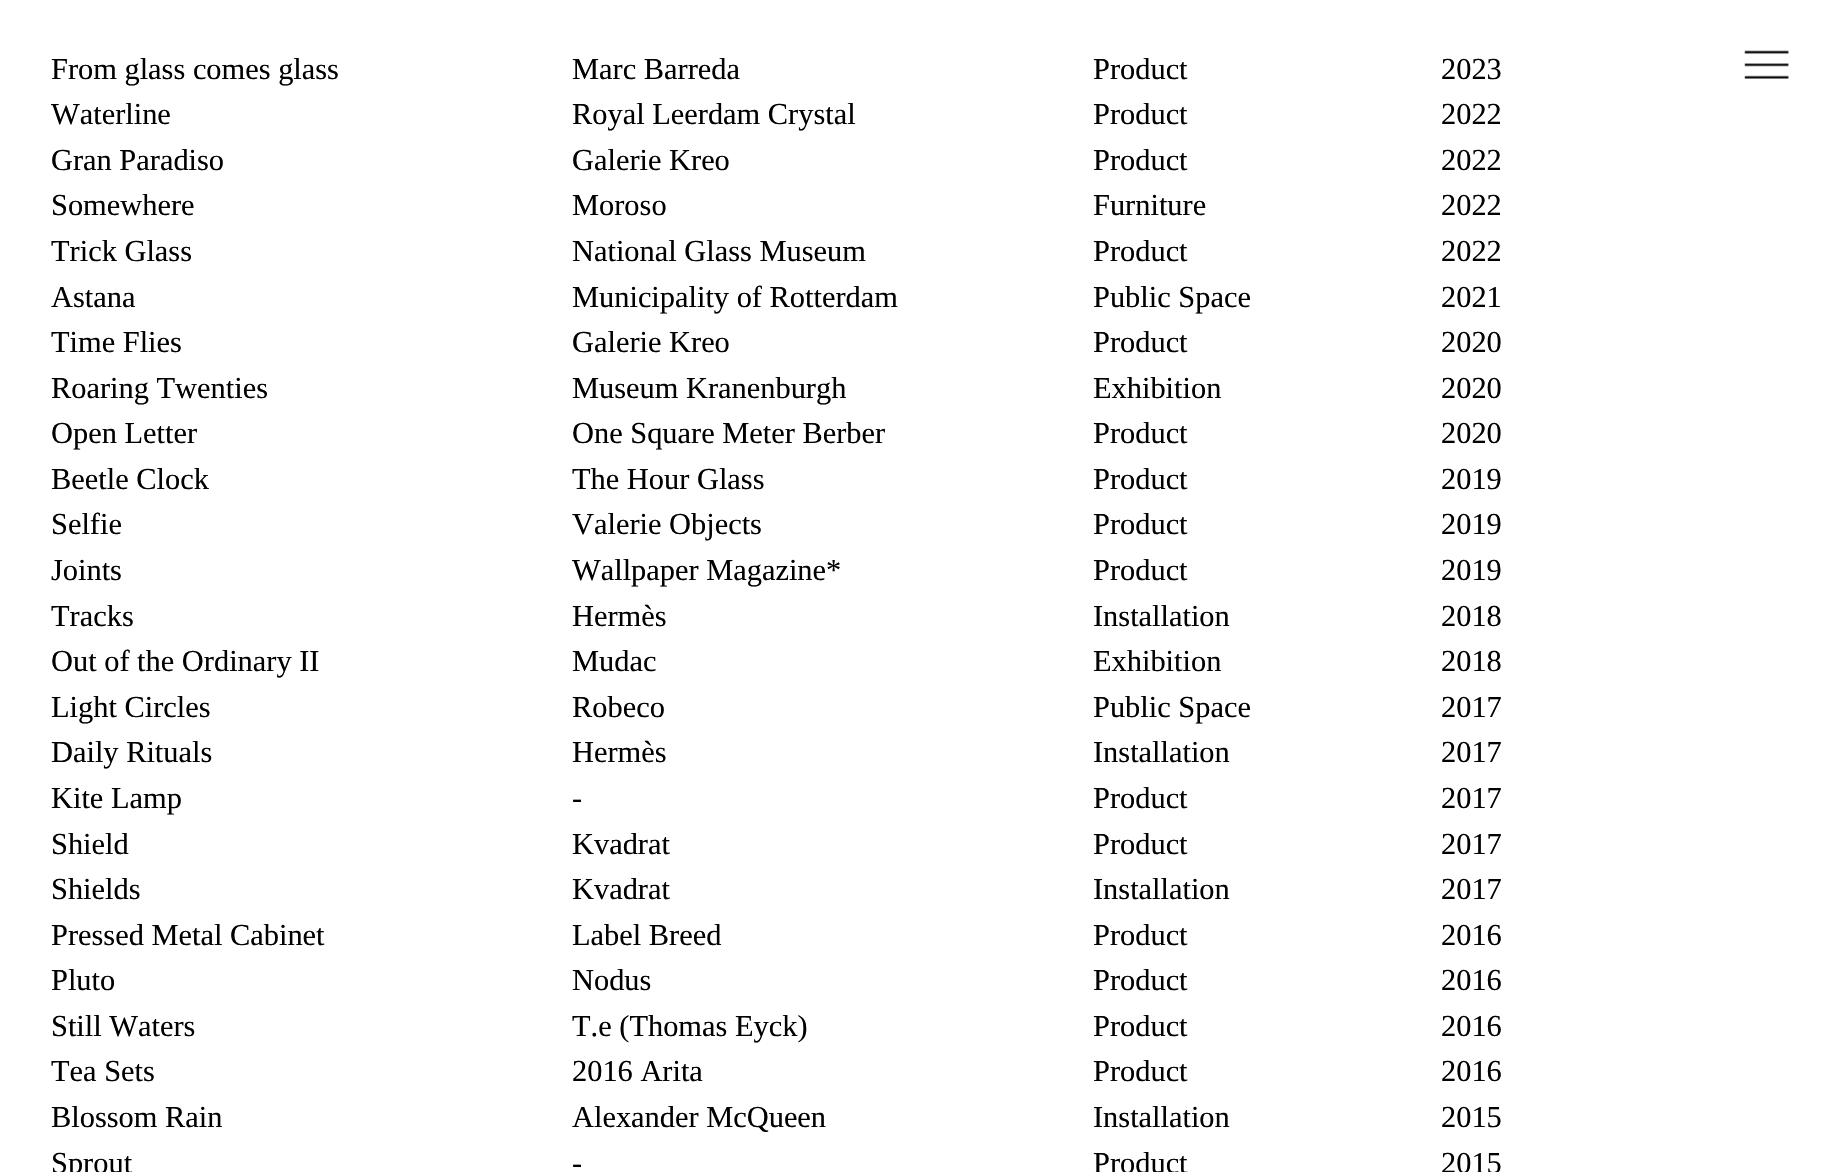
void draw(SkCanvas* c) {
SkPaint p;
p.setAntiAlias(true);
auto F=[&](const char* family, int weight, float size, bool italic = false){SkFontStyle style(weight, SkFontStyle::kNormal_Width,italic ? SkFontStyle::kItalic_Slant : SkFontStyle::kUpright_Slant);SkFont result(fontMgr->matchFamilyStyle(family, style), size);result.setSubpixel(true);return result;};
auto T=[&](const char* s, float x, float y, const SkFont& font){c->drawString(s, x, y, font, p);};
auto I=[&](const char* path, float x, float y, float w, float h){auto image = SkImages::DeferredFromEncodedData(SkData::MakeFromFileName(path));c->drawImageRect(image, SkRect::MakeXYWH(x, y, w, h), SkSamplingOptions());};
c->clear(0xffffffff);
auto f1 = F("Liberation Serif",400,30.4);
p.setColor(0xff000000);
T("From glass comes glass",51,79,f1);
T("Marc Barreda",572,79,f1);
T("Product",1093,79,f1);
T("2023",1441,79,f1);
T("Waterline",51,124,f1);
T("Royal Leerdam Crystal",572,124,f1);
T("Product",1093,124,f1);
T("2022",1441,124,f1);
T("Gran Paradiso",51,170,f1);
T("Galerie Kreo",572,170,f1);
T("Product",1093,170,f1);
T("2022",1441,170,f1);
T("Somewhere",51,215,f1);
T("Moroso",572,215,f1);
T("Furniture",1093,215,f1);
T("2022",1441,215,f1);
T("Trick Glass",51,261,f1);
T("National Glass Museum",572,261,f1);
T("Product",1093,261,f1);
T("2022",1441,261,f1);
T("Astana",51,307,f1);
T("Municipality of Rotterdam",572,307,f1);
T("Public Space",1093,307,f1);
T("2021",1441,307,f1);
T("Time Flies",51,352,f1);
T("Galerie Kreo",572,352,f1);
T("Product",1093,352,f1);
T("2020",1441,352,f1);
T("Roaring Twenties",51,398,f1);
T("Museum Kranenburgh",572,398,f1);
T("Exhibition",1093,398,f1);
T("2020",1441,398,f1);
T("Open Letter",51,443,f1);
T("One Square Meter Berber",572,443,f1);
T("Product",1093,443,f1);
T("2020",1441,443,f1);
T("Beetle Clock",51,489,f1);
T("The Hour Glass",572,489,f1);
T("Product",1093,489,f1);
T("2019",1441,489,f1);
T("Selfie",51,534,f1);
T("Valerie Objects",572,534,f1);
T("Product",1093,534,f1);
T("2019",1441,534,f1);
T("Joints",51,580,f1);
T("Wallpaper Magazine*",572,580,f1);
T("Product",1093,580,f1);
T("2019",1441,580,f1);
T("Tracks",51,626,f1);
T("Hermès",572,626,f1);
T("Installation",1093,626,f1);
T("2018",1441,626,f1);
T("Out of the Ordinary II",51,671,f1);
T("Mudac",572,671,f1);
T("Exhibition",1093,671,f1);
T("2018",1441,671,f1);
T("Light Circles",51,717,f1);
T("Robeco",572,717,f1);
T("Public Space",1093,717,f1);
T("2017",1441,717,f1);
T("Daily Rituals",51,762,f1);
T("Hermès",572,762,f1);
T("Installation",1093,762,f1);
T("2017",1441,762,f1);
T("Kite Lamp",51,808,f1);
T("-",572,808,f1);
T("Product",1093,808,f1);
T("2017",1441,808,f1);
T("Shield",51,854,f1);
T("Kvadrat",572,854,f1);
T("Product",1093,854,f1);
T("2017",1441,854,f1);
T("Shields",51,899,f1);
T("Kvadrat",572,899,f1);
T("Installation",1093,899,f1);
T("2017",1441,899,f1);
T("Pressed Metal Cabinet",51,945,f1);
T("Label Breed",572,945,f1);
T("Product",1093,945,f1);
T("2016",1441,945,f1);
T("Pluto",51,990,f1);
T("Nodus",572,990,f1);
T("Product",1093,990,f1);
T("2016",1441,990,f1);
T("Still Waters",51,1036,f1);
T("T.e (Thomas Eyck)",572,1036,f1);
T("Product",1093,1036,f1);
T("2016",1441,1036,f1);
T("Tea Sets",51,1081,f1);
T("2016 Arita",572,1081,f1);
T("Product",1093,1081,f1);
T("2016",1441,1081,f1);
T("Blossom Rain",51,1127,f1);
T("Alexander McQueen",572,1127,f1);
T("Installation",1093,1127,f1);
T("2015",1441,1127,f1);
T("Sprout",51,1173,f1);
T("-",572,1173,f1);
T("Product",1093,1173,f1);
T("2015",1441,1173,f1);
I("1.png",1744,50,45,29);
}
